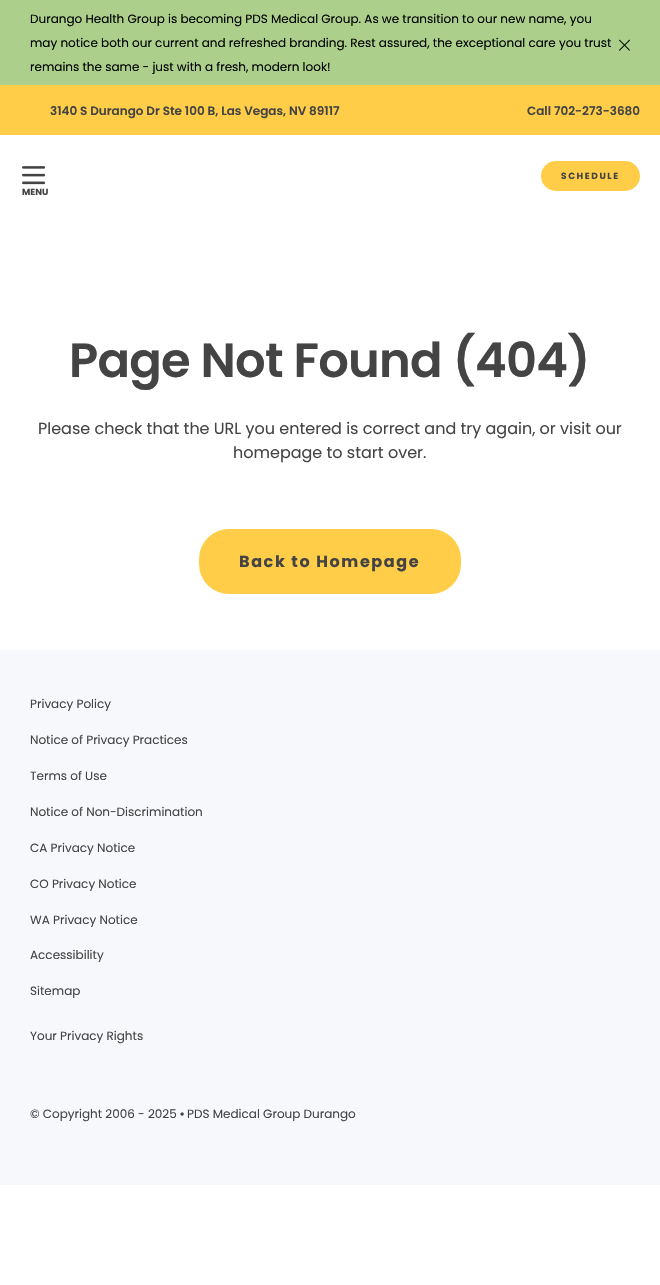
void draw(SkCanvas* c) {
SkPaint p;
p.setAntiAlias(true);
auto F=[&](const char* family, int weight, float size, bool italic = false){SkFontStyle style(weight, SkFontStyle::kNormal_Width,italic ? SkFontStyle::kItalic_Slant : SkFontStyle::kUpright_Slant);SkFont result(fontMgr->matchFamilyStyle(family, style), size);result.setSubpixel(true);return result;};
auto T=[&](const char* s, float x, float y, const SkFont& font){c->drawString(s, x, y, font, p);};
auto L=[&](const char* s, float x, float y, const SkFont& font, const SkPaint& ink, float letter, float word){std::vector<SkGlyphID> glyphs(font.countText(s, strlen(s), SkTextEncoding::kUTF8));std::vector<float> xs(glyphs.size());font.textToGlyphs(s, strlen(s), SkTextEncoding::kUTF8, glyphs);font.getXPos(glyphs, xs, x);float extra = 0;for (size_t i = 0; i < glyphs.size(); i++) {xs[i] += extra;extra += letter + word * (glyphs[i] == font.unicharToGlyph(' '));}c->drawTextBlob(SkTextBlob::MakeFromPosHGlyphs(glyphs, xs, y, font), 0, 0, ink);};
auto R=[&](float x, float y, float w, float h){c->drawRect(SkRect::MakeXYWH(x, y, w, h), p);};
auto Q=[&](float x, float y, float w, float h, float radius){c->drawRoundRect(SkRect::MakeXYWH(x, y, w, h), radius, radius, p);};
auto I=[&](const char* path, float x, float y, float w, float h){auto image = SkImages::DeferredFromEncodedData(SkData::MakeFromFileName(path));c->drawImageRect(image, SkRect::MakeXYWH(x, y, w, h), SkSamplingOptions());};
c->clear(0xffffffff);
p.setColor(0xffacd08c);
R(0,0,660,85);
auto f1 = F("Poppins",400,12);
p.setColor(0xff000000);
T("Durango Health Group is becoming PDS Medical Group. As we transition to our new name, you",30,23,f1);
T("may notice both our current and refreshed branding. Rest assured, the exceptional care you trust",30,47,f1);
T("remains the same - just with a fresh, modern look!",30,71,f1);
I("1.png",619,39,11,12);
p.setColor(0xffffcd47);
R(0,85,660,50);
auto f2 = F("Poppins",600,12);
p.setColor(0xff444444);
T("3140 S Durango Dr Ste 100 B, Las Vegas, NV 89117",50,115,f2);
T("Call 702-273-3680",527,115,f2);
p.setColor(0xffffcd47);
Q(541,161,99,30,15);
auto f3 = F("Poppins",700,9);
p.setColor(0xff444444);
L("SCHEDULE",561,179,f3,p,1.6,0);
I("2.png",22,166,24,19);
T("MENU",22,195,f3);
auto f4 = F("Poppins",600,48);
L("Page Not Found (404)",69,377,f4,p,-.75,0);
auto f5 = F("Poppins",400,16);
T("Please check that the URL you entered is correct and try again, or visit our",38,434,f5);
T("homepage to start over.",233,458,f5);
p.setColor(0xffffcd47);
Q(199,529,262,65,30);
auto f6 = F("Poppins",700,16);
p.setColor(0xff444444);
L("Back to Homepage",239,567,f6,p,1.6,0);
p.setColor(0xfff7f8fc);
R(0,650,660,535);
p.setColor(0xff444444);
T("Privacy Policy",30,708,f1);
T("Notice of Privacy Practices",30,744,f1);
T("Terms of Use",30,780,f1);
T("Notice of Non-Discrimination",30,816,f1);
T("CA Privacy Notice",30,852,f1);
T("CO Privacy Notice",30,888,f1);
T("WA Privacy Notice",30,924,f1);
T("Accessibility",30,959,f1);
T("Sitemap",30,995,f1);
T("Your Privacy Rights",30,1040,f1);
T("© Copyright 2006 - 2025",30,1118,f1);
auto f7 = F("Liberation Sans",400,12);
T("•",180,1118,f7);
T("PDS Medical Group Durango",187,1118,f1);
}
